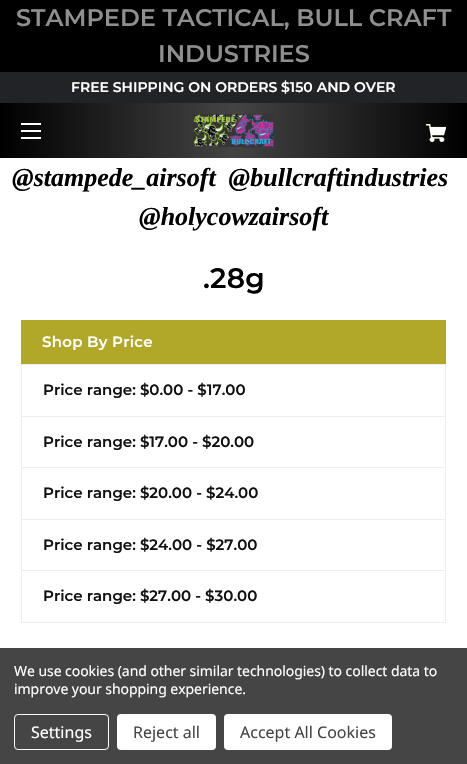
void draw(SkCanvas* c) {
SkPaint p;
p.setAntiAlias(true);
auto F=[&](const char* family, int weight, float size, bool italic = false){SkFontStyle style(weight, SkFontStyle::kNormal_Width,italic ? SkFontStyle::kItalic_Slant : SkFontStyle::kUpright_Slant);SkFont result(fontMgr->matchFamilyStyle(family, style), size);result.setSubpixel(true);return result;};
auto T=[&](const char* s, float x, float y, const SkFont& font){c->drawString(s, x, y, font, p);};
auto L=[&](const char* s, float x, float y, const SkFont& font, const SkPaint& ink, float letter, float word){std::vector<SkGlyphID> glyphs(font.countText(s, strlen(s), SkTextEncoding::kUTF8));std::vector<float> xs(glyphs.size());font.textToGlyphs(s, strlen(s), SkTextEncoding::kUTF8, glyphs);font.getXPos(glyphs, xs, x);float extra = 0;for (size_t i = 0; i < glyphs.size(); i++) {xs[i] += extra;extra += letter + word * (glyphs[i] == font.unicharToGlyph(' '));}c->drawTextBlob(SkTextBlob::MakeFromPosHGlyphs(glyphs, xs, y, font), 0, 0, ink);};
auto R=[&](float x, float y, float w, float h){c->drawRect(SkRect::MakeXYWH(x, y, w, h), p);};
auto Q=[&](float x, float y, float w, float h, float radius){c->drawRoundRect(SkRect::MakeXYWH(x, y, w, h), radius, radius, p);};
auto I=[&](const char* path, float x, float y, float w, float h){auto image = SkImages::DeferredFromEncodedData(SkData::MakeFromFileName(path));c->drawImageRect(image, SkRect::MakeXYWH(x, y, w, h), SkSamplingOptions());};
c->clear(0xffffffff);
p.setColor(0xff000000);
R(0,0,467,72);
auto f1 = F("Montserrat",100,24);
p.setColor(0xff8f8f8f);
T("STAMPEDE TACTICAL, BULL CRAFT",16,26,f1);
T("INDUSTRIES",158,62,f1);
p.setColor(0xff212327);
R(0,72,467,31);
auto f2 = F("Montserrat",100,14);
p.setColor(0xffffffff);
T("FREE SHIPPING ON ORDERS $150 AND OVER",71,92,f2);
{
const SkColor colors[] = {0xff000000,0xff444444,0xff000000};
const float stops[] = {0,.5,1};
const SkPoint ends[] = {{0,131}, {467,130}};
p.setShader(SkGradientShader::MakeLinear(ends, colors, stops, 3, SkTileMode::kClamp));
p.setAlpha(255);
}
R(0,103,467,55);
p.setShader(nullptr);
p.setColor(0xffffffff);
R(21,130,20,2);
R(21,123,20,2);
R(21,137,20,2);
I("1.png",193,114,81,33);
I("2.png",426,124,20,18);
auto f3 = F("Liberation Serif",700,26,true);
p.setColor(0xff000000);
T("@stampede_airsoft  @bullcraftindustries",12,186,f3);
T("@holycowzairsoft",139,225,f3);
auto f4 = F("Montserrat",100,28);
L(".28g",203,288,f4,p,.25,0);
p.setColor(0xffb1a729);
R(21,320,425,44);
auto f5 = F("Montserrat",100,15);
p.setColor(0xffffffff);
L("Shop By Price",42,347,f5,p,.25,0);
p.setStroke(true);
p.setStrokeWidth(1);
p.setColor(0xffeeeeee);
c->drawRect(SkRect::MakeXYWH(21.5,364.5,424,258),p);
p.setStroke(false);
R(22,416,423,1);
p.setColor(0xff111111);
T("Price range: $0.00 - $17.00",43,395,f5);
p.setColor(0xffeeeeee);
R(22,467,423,1);
p.setColor(0xff111111);
T("Price range: $17.00 - $20.00",43,447,f5);
p.setColor(0xffeeeeee);
R(22,519,423,1);
p.setColor(0xff111111);
T("Price range: $20.00 - $24.00",43,498,f5);
p.setColor(0xffeeeeee);
R(22,570,423,1);
p.setColor(0xff111111);
T("Price range: $24.00 - $27.00",43,550,f5);
T("Price range: $27.00 - $30.00",43,601,f5);
p.setColor(0xff454545);
R(0,648,467,116);
auto f6 = F("Noto Sans",400,14);
p.setColor(0xffffffff);
L("We use cookies (and other similar technologies) to collect data to",14,676,f6,p,-.05,0);
L("improve your shopping experience.",14,694,f6,p,-.05,0);
p.setStroke(true);
c->drawRoundRect(SkRect::MakeXYWH(14.5,714.5,94,35),3.5,3.5,p);
auto f7 = F("Noto Sans",400,16);
p.setStroke(false);
T("Settings",31,738,f7);
Q(117,714,99,36,4);
p.setColor(0xff454545);
T("Reject all",133,738,f7);
p.setColor(0xffffffff);
Q(224,714,168,36,4);
p.setColor(0xff454545);
T("Accept All Cookies",240,738,f7);
}
